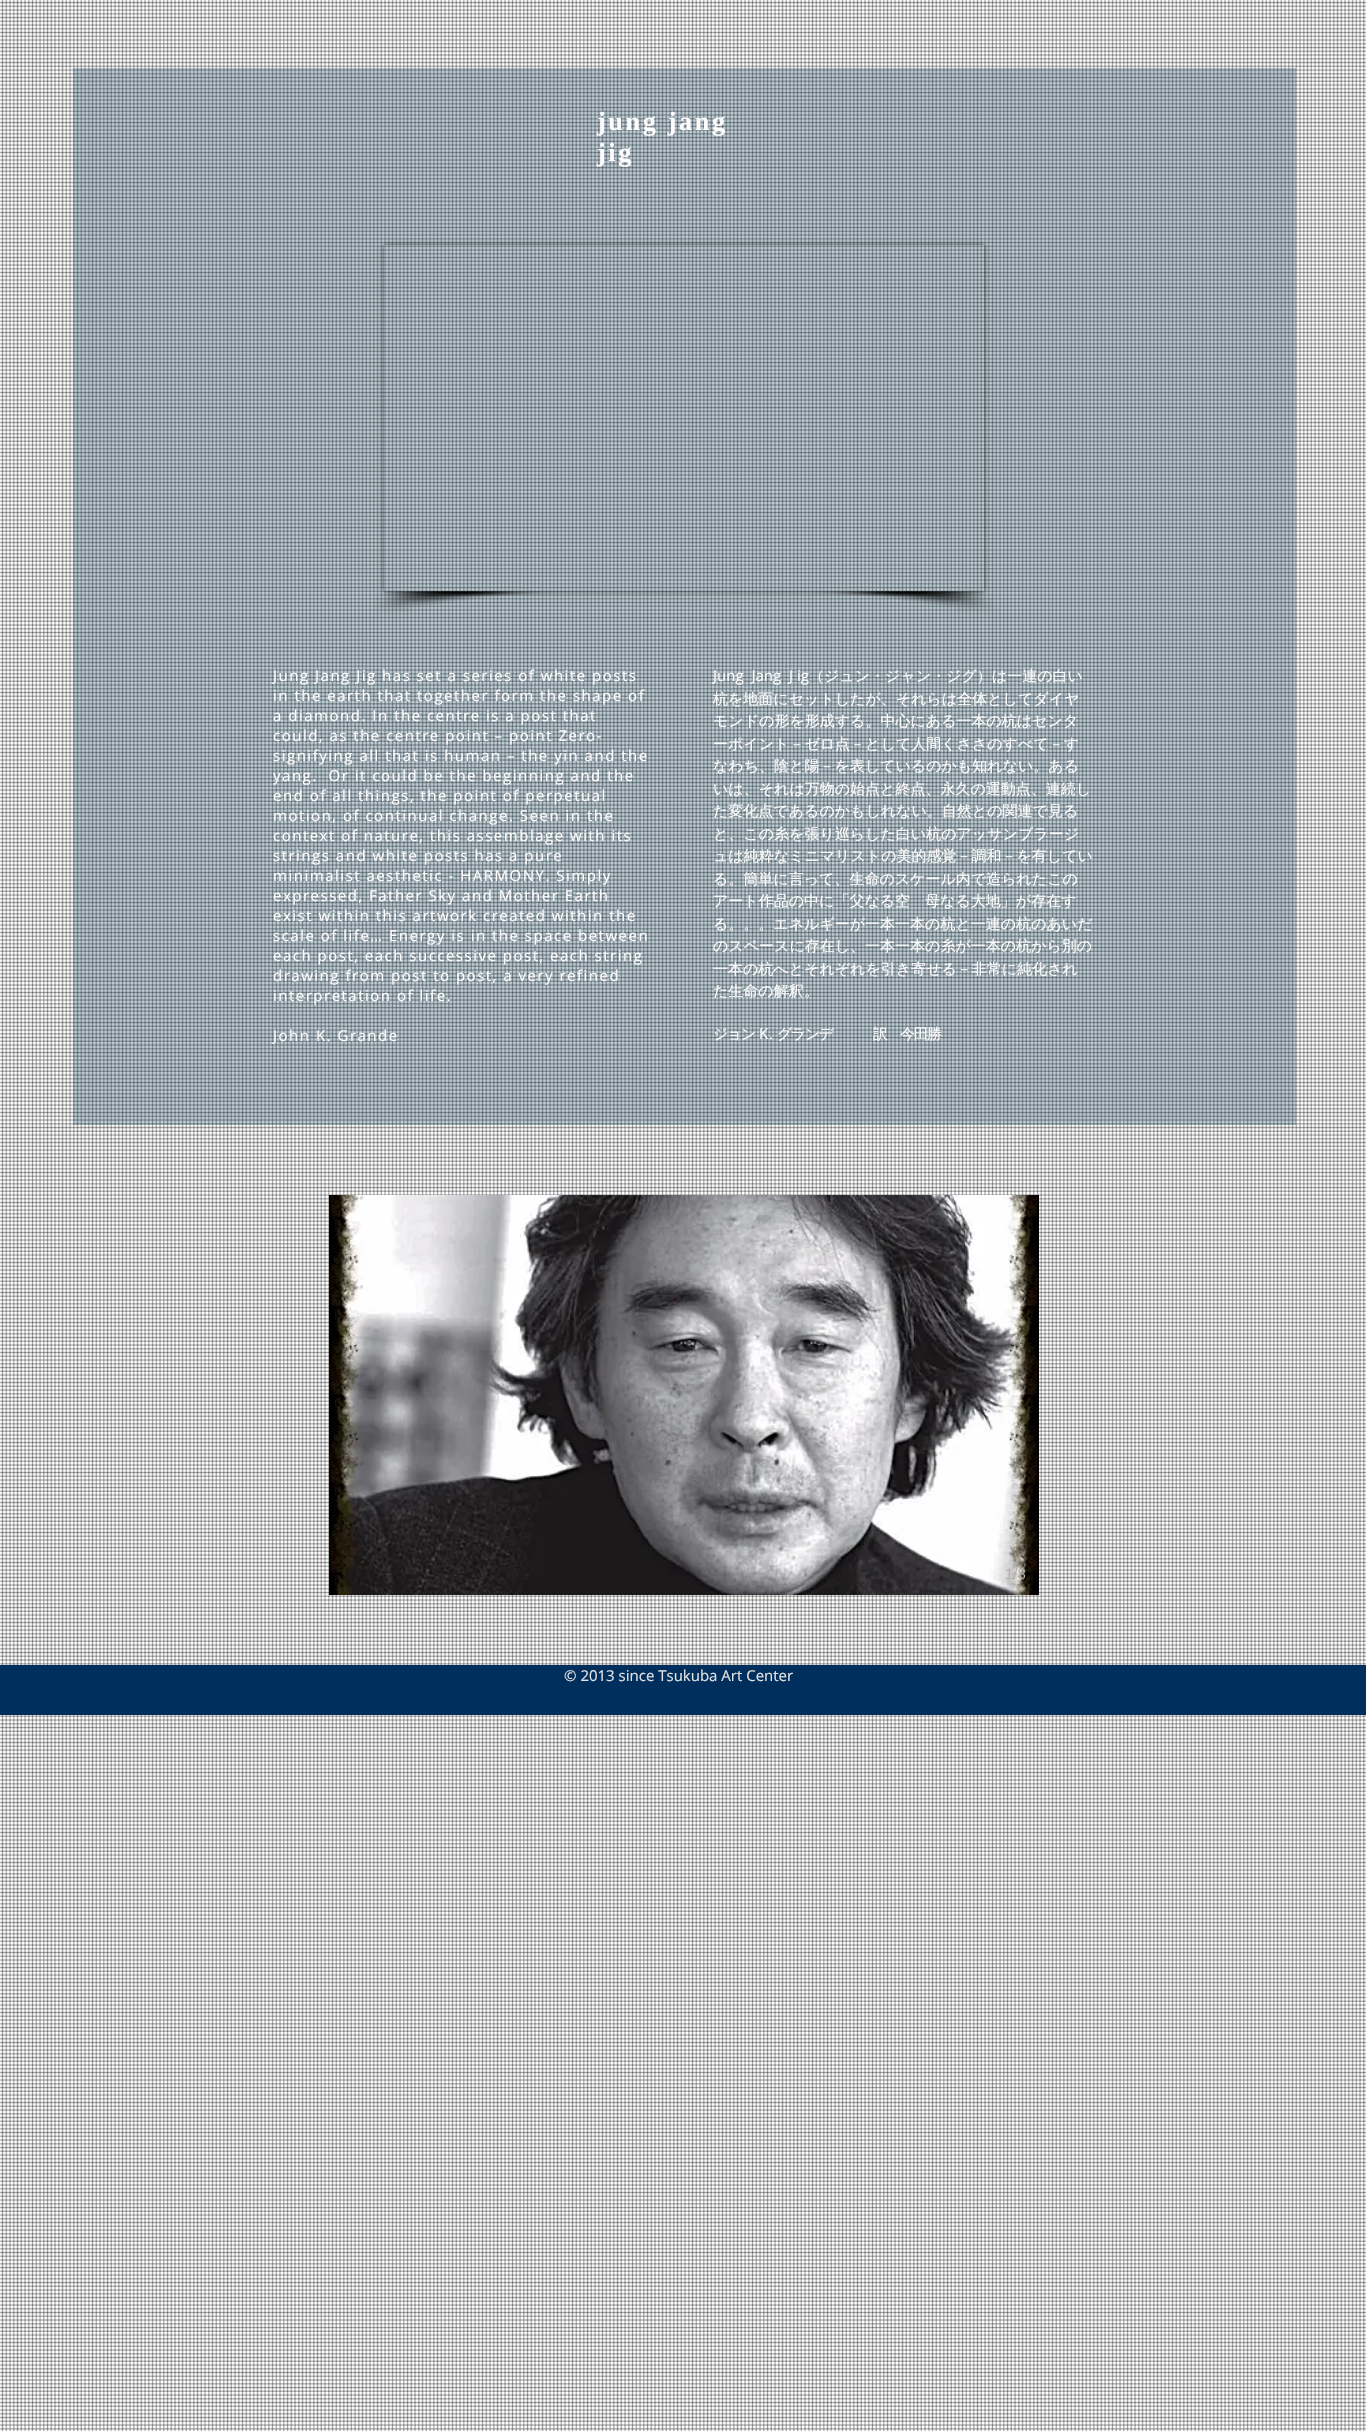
void draw(SkCanvas* c) {
SkPaint p;
p.setAntiAlias(true);
auto F=[&](const char* family, int weight, float size, bool italic = false){SkFontStyle style(weight, SkFontStyle::kNormal_Width,italic ? SkFontStyle::kItalic_Slant : SkFontStyle::kUpright_Slant);SkFont result(fontMgr->matchFamilyStyle(family, style), size);result.setSubpixel(true);return result;};
auto T=[&](const char* s, float x, float y, const SkFont& font){c->drawString(s, x, y, font, p);};
auto L=[&](const char* s, float x, float y, const SkFont& font, const SkPaint& ink, float letter, float word){std::vector<SkGlyphID> glyphs(font.countText(s, strlen(s), SkTextEncoding::kUTF8));std::vector<float> xs(glyphs.size());font.textToGlyphs(s, strlen(s), SkTextEncoding::kUTF8, glyphs);font.getXPos(glyphs, xs, x);float extra = 0;for (size_t i = 0; i < glyphs.size(); i++) {xs[i] += extra;extra += letter + word * (glyphs[i] == font.unicharToGlyph(' '));}c->drawTextBlob(SkTextBlob::MakeFromPosHGlyphs(glyphs, xs, y, font), 0, 0, ink);};
auto R=[&](float x, float y, float w, float h){c->drawRect(SkRect::MakeXYWH(x, y, w, h), p);};
auto I=[&](const char* path, float x, float y, float w, float h){auto image = SkImages::DeferredFromEncodedData(SkData::MakeFromFileName(path));c->drawImageRect(image, SkRect::MakeXYWH(x, y, w, h), SkSamplingOptions());};
auto P=[&](const char* data, bool evenOdd = false){SkPath result = *SkParsePath::FromSVGString(data);if (evenOdd) result.setFillType(SkPathFillType::kEvenOdd);return result;};
c->clear(0xffffffff);
I("1.png",0,0,1366,2431);
p.setColor(0x40043551);
R(73,68,1223,1057);
auto f1 = F("Liberation Serif",700,26.25);
p.setColor(0xfffefdfd);
L("jung jang",597,130,f1,p,2.6,0);
L("jig",597,161,f1,p,2.6,0);
c->save();
c->clipPath(P("M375 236h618v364h-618zm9 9h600v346h-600z",true),true);
p.setColor(0x99000000);
p.setMaskFilter(SkMaskFilter::MakeBlur(kNormal_SkBlurStyle, 2.5));
c->drawRect(SkRect::MakeXYWH(384,245,600,346),p);
p.setMaskFilter(nullptr);
c->restore();
I("2.png",374,591,182,22);
I("3.png",813,591,181,22);
auto f2 = F("Open Sans",400,15);
p.setColor(0xfffefdfd);
L("Jung Jang Jig has set a series of white posts",273,681,f2,p,1.5,0);
L("in the earth that together form the shape of",273,701,f2,p,1.5,0);
L("a diamond. In the centre is a post that",273,721,f2,p,1.5,0);
L("could, as the centre point – point Zero-",273,741,f2,p,1.5,0);
L("signifying all that is human – the yin and the",273,761,f2,p,1.5,0);
L("yang.  Or it could be the beginning and the",273,781,f2,p,1.5,0);
L("end of all things, the point of perpetual",273,801,f2,p,1.5,0);
L("motion, of continual change. Seen in the",273,821,f2,p,1.5,0);
L("context of nature, this assemblage with its",273,841,f2,p,1.5,0);
L("strings and white posts has a pure",273,861,f2,p,1.5,0);
L("minimalist aesthetic - HARMONY. Simply",273,881,f2,p,1.5,0);
L("expressed, Father Sky and Mother Earth",273,901,f2,p,1.5,0);
L("exist within this artwork created within the",273,921,f2,p,1.5,0);
L("scale of life… Energy is in the space between",273,941,f2,p,1.5,0);
L("each post, each successive post, each string",273,961,f2,p,1.5,0);
L("drawing from post to post, a very refined",273,981,f2,p,1.5,0);
L("interpretation of life.",273,1001,f2,p,1.5,0);
L("John K. Grande",273,1041,f2,p,1.5,0);
T("Jung  Jang  J ig",713,681,f2);
auto f3 = F("WenQuanYi Zen Hei",500,15);
T("（ジュン・ジャン・ジグ）は一連の白い",809,681,f3);
T("杭を地面にセットしたが、それらは全体としてダイヤ",713,704,f3);
T("モンドの形を形成する。中心にある一本の杭はセンタ",713,726,f3);
T("ーポイント－ゼロ点－として人間くささのすべて－す",713,749,f3);
T("なわち、陰と陽－を表しているのかも知れない。ある",713,771,f3);
T("いは、それは万物の始点と終点、永久の運動点、連続し",713,794,f3);
T("た変化点であるのかもしれない。自然との関連で見る",713,816,f3);
T("と、この糸を張り巡らした白い杭のアッサンブラージ",713,839,f3);
T("ュは純粋なミニマリストの美的感覚－調和－を有してい",713,861,f3);
T("る。簡単に言って、生命のスケール内で造られたこの",713,884,f3);
T("アート作品の中に「父なる空　母なる大地」が存在す",713,906,f3);
T("る。。。エネルギーが一本一本の杭と一連の杭のあいだ",713,929,f3);
T("のスペースに存在し、一本一本の糸が一本の杭から別の",713,951,f3);
T("一本の杭へとそれぞれを引き寄せる－非常に純化され",713,974,f3);
T("た生命の解釈",713,996,f3);
L("。",804,996,f3,p,-1.5,0);
L("ジョン",713,1039,f3,p,-1.5,0);
L("K .",759,1039,f2,p,-1.5,0);
L("グランデ　　　訳　今田勝",777,1039,f3,p,-1.5,0);
I("4.png",329,1195,710,400);
auto f4 = F("Liberation Sans",400,15);
p.setColor(0xffb3b0ac);
T("1/8",1005,1579,f4);
p.setColor(0xff002e5d);
R(0,1665,1366,50);
p.setColor(0xffe3e3e3);
T("© 2013 since Tsukuba Art Center",564,1681,f2);
}
